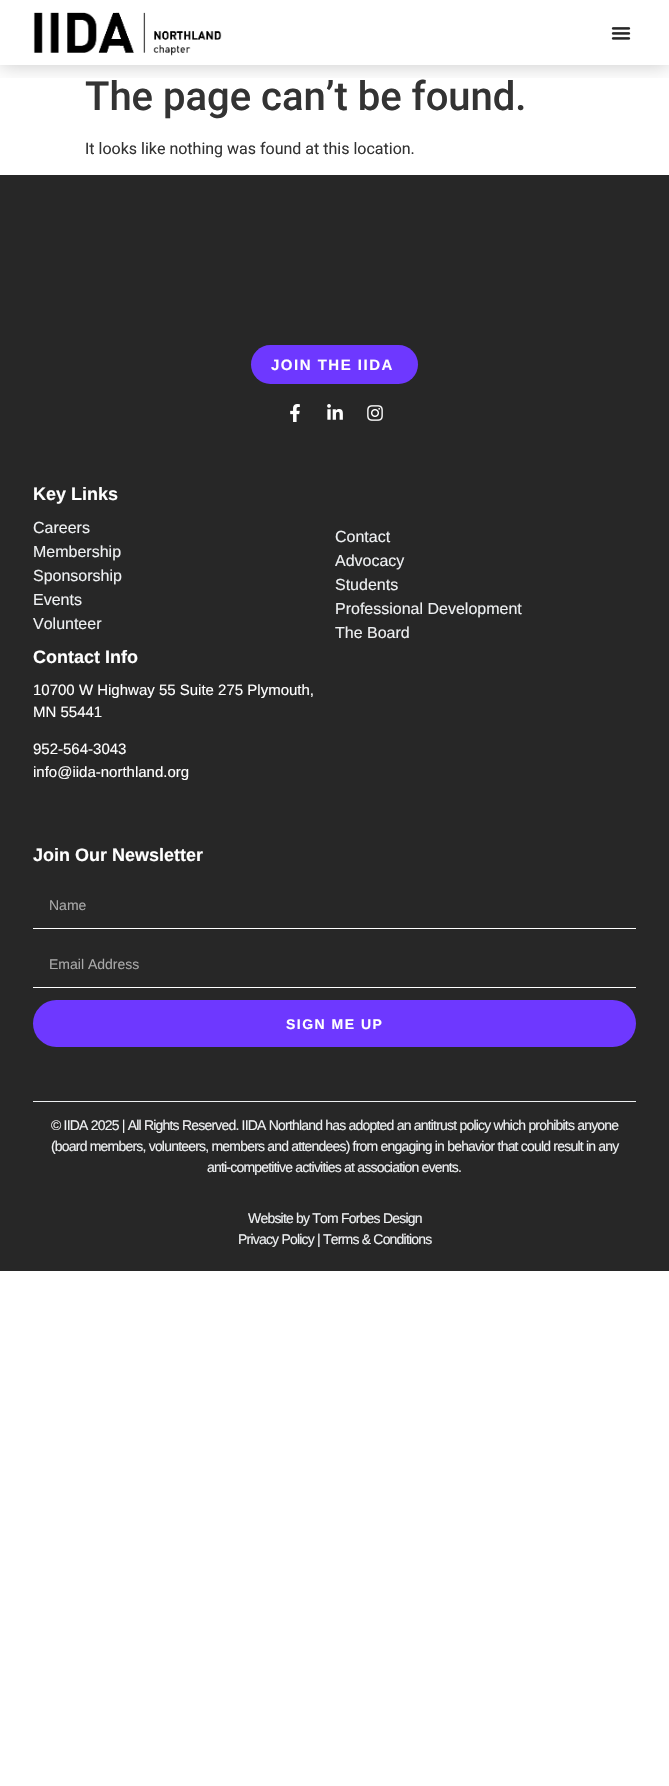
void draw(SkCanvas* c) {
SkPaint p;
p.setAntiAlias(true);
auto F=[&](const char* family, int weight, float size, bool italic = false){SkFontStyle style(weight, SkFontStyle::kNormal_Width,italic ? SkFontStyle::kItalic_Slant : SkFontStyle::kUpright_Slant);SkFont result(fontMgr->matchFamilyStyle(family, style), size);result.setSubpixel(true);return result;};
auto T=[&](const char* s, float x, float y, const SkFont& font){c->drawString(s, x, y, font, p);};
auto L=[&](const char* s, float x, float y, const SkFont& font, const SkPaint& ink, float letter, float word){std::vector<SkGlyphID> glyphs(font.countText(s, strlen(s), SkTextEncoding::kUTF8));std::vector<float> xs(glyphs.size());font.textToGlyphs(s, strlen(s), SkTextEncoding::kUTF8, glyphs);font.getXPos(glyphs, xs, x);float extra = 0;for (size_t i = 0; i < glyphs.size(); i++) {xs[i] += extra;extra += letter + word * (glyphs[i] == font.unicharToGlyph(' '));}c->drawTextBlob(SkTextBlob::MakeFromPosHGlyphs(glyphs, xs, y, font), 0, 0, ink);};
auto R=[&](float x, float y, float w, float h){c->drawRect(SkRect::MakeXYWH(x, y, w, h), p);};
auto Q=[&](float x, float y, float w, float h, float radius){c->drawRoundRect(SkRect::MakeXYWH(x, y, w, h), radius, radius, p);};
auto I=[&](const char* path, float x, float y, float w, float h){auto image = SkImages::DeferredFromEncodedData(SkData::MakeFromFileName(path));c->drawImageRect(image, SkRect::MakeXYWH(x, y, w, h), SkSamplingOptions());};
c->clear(0xffffffff);
c->save();
c->clipRect(SkRect::MakeXYWH(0,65,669,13));
p.setColor(0x38000000);
p.setMaskFilter(SkMaskFilter::MakeBlur(kNormal_SkBlurStyle, 9.5));
c->drawRect(SkRect::MakeXYWH(0,0,669,65),p);
p.setMaskFilter(nullptr);
c->restore();
I("1.png",33,12,189,44);
I("2.png",611,27,20,13);
auto f1 = F("Roboto",500,40);
p.setColor(0xff333333);
T("The page can’t be found.",85,110,f1);
auto f2 = F("Roboto",400,16);
T("It looks like nothing was found at this location.",85,154,f2);
p.setColor(0xff272727);
R(0,175,669,1096);
p.setColor(0xff6e38ff);
Q(251,345,167,39,19.5);
auto f3 = F("Liberation Sans",700,15);
p.setColor(0xffffffff);
L("JOIN THE IIDA",271,370,f3,p,1.5,0);
I("3.png",290,404,10,18);
I("4.png",327,404,16,16);
I("5.png",367,405,16,16);
auto f4 = F("Liberation Sans",700,18);
T("Key Links",33,500,f4);
auto f5 = F("Liberation Sans",400,16);
p.setColor(0xffeef0f2);
T("Careers",33,533,f5);
T("Membership",33,557,f5);
T("Sponsorship",33,581,f5);
T("Events",33,605,f5);
T("Volunteer",33,629,f5);
T("Contact",335,542,f5);
T("Advocacy",335,566,f5);
T("Students",335,590,f5);
T("Professional Development",335,614,f5);
T("The Board",335,638,f5);
p.setColor(0xffffffff);
T("Contact Info",33,663,f4);
auto f6 = F("Liberation Sans",400,15);
T("10700 W Highway 55 Suite 275 Plymouth,",33,695,f6);
T("MN 55441",33,717,f6);
T("952-564-3043",33,754,f6);
T("info@iida-northland.org",33,777,f6);
T("Join Our Newsletter",33,861,f4);
R(33,928,603,1);
auto f7 = F("Liberation Sans",400,14);
p.setColor(0xffa9a9a9);
T("Name",49,910,f7);
p.setColor(0xffffffff);
R(33,987,603,1);
p.setColor(0xffa9a9a9);
T("Email Address",49,969,f7);
p.setColor(0xff6e38ff);
Q(33,1000,603,47,23.5);
auto f8 = F("Liberation Sans",700,14);
p.setColor(0xffffffff);
L("SIGN ME UP",286,1029,f8,p,1.5,0);
p.setColor(0xffeef0f2);
R(33,1101,603,1);
L("© IIDA 2025 | All Rights Reserved. IIDA Northland has adopted an antitrust policy which prohibits anyone",51,1130,f7,p,-.8,0);
L("(board members, volunteers, members and attendees) from engaging in behavior that could result in any",51,1151,f7,p,-.8,0);
L("anti-competitive activities at association events.",207,1172,f7,p,-.8,0);
L("Website by Tom Forbes Design",248,1223,f7,p,-.8,0);
L("Privacy Policy | Terms & Conditions",238,1244,f7,p,-.8,0);
}
